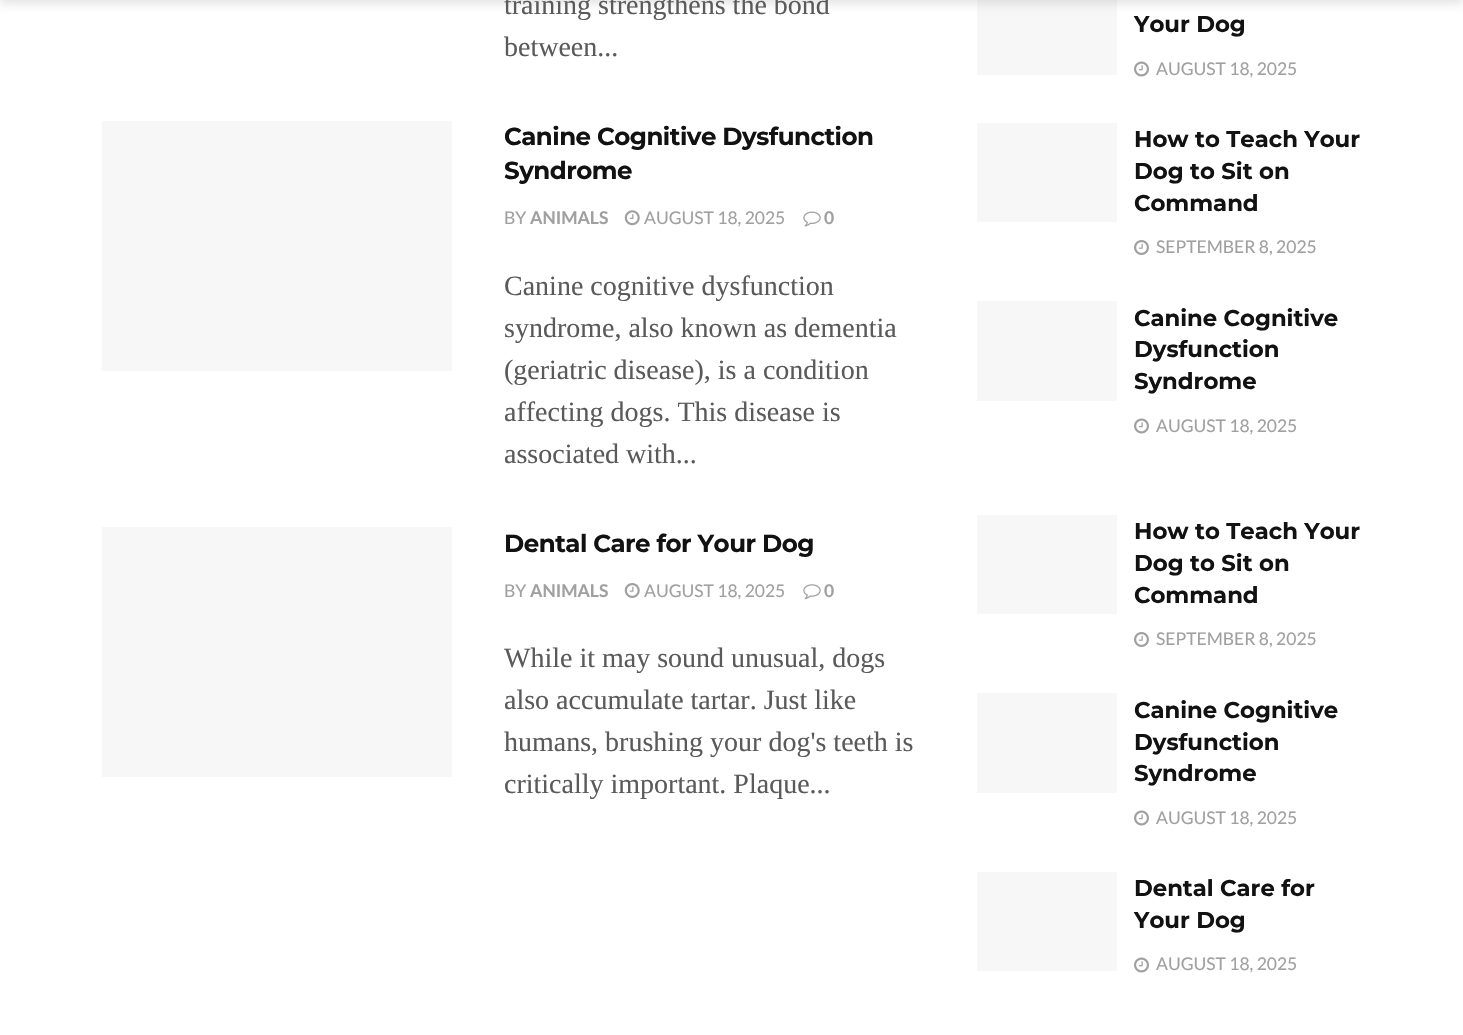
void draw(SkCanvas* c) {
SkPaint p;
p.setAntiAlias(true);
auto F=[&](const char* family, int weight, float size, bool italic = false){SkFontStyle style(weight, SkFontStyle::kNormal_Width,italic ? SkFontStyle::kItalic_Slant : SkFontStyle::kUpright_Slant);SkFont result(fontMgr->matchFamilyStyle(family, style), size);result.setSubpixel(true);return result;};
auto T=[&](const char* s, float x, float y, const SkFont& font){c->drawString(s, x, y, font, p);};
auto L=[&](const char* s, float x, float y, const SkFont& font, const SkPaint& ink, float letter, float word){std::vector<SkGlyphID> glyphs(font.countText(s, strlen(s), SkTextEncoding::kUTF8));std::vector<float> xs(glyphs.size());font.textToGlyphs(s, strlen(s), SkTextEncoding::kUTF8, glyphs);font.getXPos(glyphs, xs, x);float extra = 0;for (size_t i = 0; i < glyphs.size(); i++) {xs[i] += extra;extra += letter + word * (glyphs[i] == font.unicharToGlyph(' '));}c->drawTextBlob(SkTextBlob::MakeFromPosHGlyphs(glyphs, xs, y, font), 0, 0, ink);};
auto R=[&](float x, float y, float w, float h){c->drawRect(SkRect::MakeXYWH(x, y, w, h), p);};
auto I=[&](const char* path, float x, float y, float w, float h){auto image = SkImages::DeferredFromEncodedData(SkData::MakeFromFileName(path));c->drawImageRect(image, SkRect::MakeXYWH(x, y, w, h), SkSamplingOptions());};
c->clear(0xffffffff);
p.setColor(0xfff7f7f7);
R(977,0,140,75);
p.setColor(0x1a000000);
p.setMaskFilter(SkMaskFilter::MakeBlur(kNormal_SkBlurStyle, 5));
c->drawRect(SkRect::MakeXYWH(0,-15,1463,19),p);
p.setMaskFilter(nullptr);
auto f1 = F("Liberation Serif",400,28);
p.setColor(0xff5a5a5a);
T("training strengthens the bond",504,14,f1);
T("between...",504,56,f1);
p.setColor(0xfff7f7f7);
R(102,121,350,250);
auto f2 = F("Montserrat",700,24.5);
p.setColor(0xff121212);
L("Canine Cognitive Dysfunction",504,145,f2,p,-.5,0);
L("Syndrome",504,179,f2,p,-.5,0);
auto f3 = F("Lato",400,17.5);
p.setColor(0xffa0a0a0);
T("BY",504,224,f3);
auto f4 = F("Lato",700,17.5);
T("ANIMALS",530,224,f4);
I("1.png",624,210,16,16);
T("AUGUST 18, 2025",644,224,f3);
I("2.png",803,211,18,16);
T("0",824,224,f4);
p.setColor(0xff5a5a5a);
T("Canine cognitive dysfunction",504,295,f1);
T("syndrome, also known as dementia",504,337,f1);
T("(geriatric disease), is a condition",504,379,f1);
T("affecting dogs. This disease is",504,421,f1);
T("associated with...",504,463,f1);
p.setColor(0xfff7f7f7);
R(102,527,350,250);
p.setColor(0xff121212);
L("Dental Care for Your Dog",504,552,f2,p,-.5,0);
p.setColor(0xffa0a0a0);
T("BY",504,597,f3);
T("ANIMALS",530,597,f4);
I("3.png",624,583,16,15);
T("AUGUST 18, 2025",644,597,f3);
I("4.png",803,584,18,16);
T("0",824,597,f4);
p.setColor(0xff5a5a5a);
T("While it may sound unusual, dogs",504,667,f1);
T("also accumulate tartar. Just like",504,709,f1);
T("humans, brushing your dog's teeth is",504,751,f1);
T("critically important. Plaque...",504,793,f1);
auto f5 = F("Montserrat",700,22.75);
p.setColor(0xff121212);
T("Your Dog",1134,32,f5);
I("5.png",1134,61,15,16);
p.setColor(0xffa0a0a0);
T("AUGUST 18, 2025",1156,75,f3);
p.setColor(0xfff7f7f7);
R(977,123,140,99);
p.setColor(0xff121212);
T("How to Teach Your",1134,147,f5);
T("Dog to Sit on",1134,179,f5);
T("Command",1134,211,f5);
I("6.png",1134,240,15,15);
p.setColor(0xffa0a0a0);
T("SEPTEMBER 8, 2025",1156,253,f3);
p.setColor(0xfff7f7f7);
R(977,301,140,100);
p.setColor(0xff121212);
T("Canine Cognitive",1134,326,f5);
T("Dysfunction",1134,357,f5);
T("Syndrome",1134,389,f5);
I("5.png",1134,418,15,16);
p.setColor(0xffa0a0a0);
T("AUGUST 18, 2025",1156,432,f3);
p.setColor(0xfff7f7f7);
R(977,515,140,99);
p.setColor(0xff121212);
T("How to Teach Your",1134,539,f5);
T("Dog to Sit on",1134,571,f5);
T("Command",1134,603,f5);
I("6.png",1134,632,15,15);
p.setColor(0xffa0a0a0);
T("SEPTEMBER 8, 2025",1156,645,f3);
p.setColor(0xfff7f7f7);
R(977,693,140,100);
p.setColor(0xff121212);
T("Canine Cognitive",1134,718,f5);
T("Dysfunction",1134,750,f5);
T("Syndrome",1134,781,f5);
I("5.png",1134,810,15,16);
p.setColor(0xffa0a0a0);
T("AUGUST 18, 2025",1156,824,f3);
p.setColor(0xfff7f7f7);
R(977,872,140,99);
p.setColor(0xff121212);
T("Dental Care for",1134,896,f5);
T("Your Dog",1134,928,f5);
I("5.png",1134,957,15,16);
p.setColor(0xffa0a0a0);
T("AUGUST 18, 2025",1156,970,f3);
}
